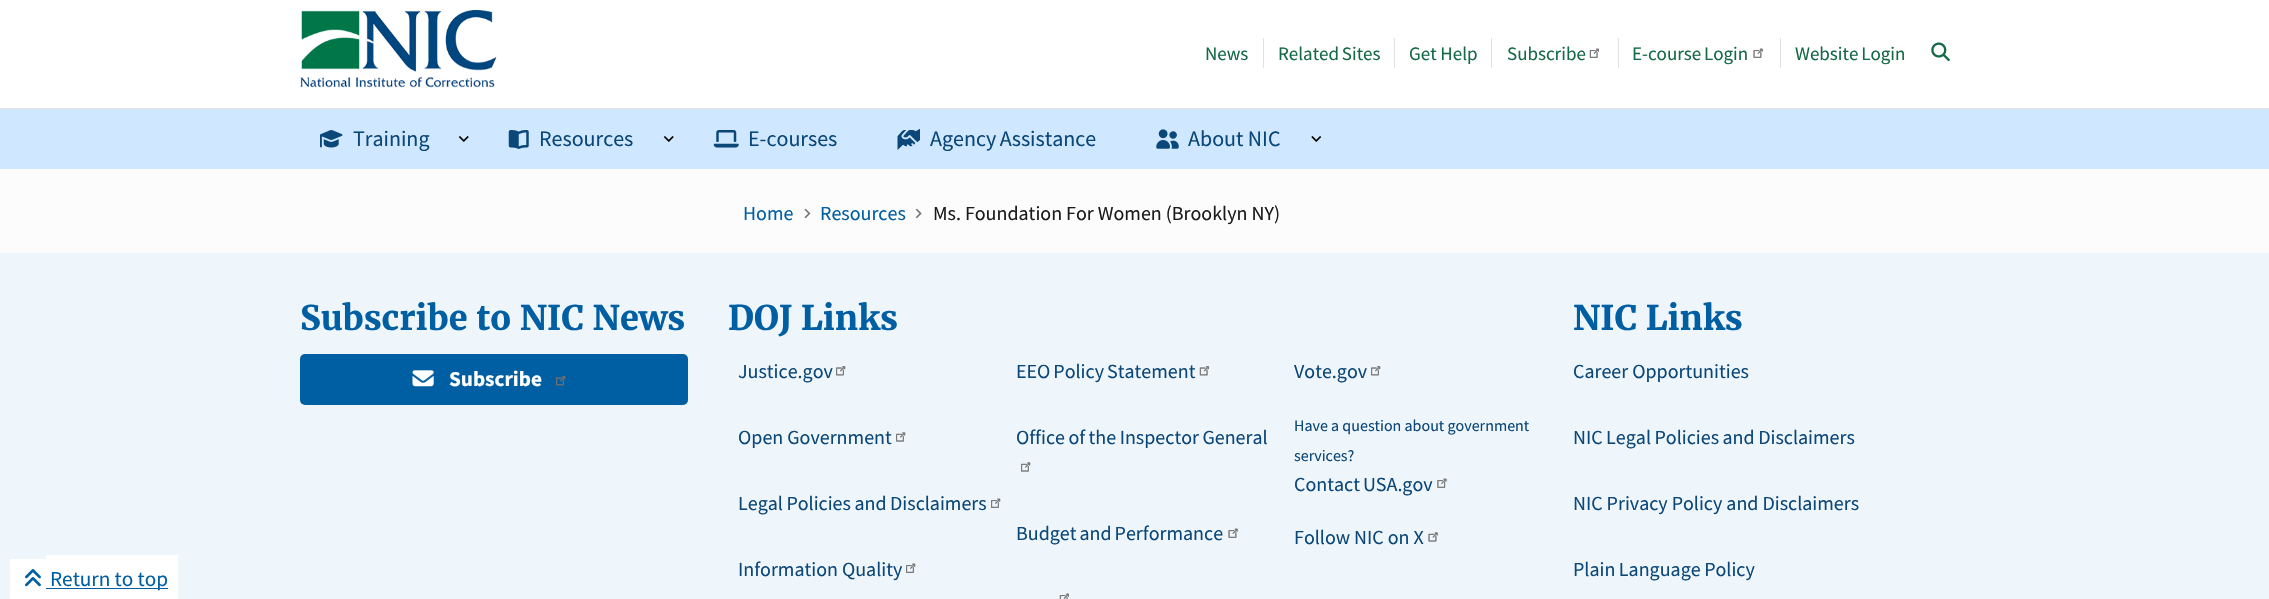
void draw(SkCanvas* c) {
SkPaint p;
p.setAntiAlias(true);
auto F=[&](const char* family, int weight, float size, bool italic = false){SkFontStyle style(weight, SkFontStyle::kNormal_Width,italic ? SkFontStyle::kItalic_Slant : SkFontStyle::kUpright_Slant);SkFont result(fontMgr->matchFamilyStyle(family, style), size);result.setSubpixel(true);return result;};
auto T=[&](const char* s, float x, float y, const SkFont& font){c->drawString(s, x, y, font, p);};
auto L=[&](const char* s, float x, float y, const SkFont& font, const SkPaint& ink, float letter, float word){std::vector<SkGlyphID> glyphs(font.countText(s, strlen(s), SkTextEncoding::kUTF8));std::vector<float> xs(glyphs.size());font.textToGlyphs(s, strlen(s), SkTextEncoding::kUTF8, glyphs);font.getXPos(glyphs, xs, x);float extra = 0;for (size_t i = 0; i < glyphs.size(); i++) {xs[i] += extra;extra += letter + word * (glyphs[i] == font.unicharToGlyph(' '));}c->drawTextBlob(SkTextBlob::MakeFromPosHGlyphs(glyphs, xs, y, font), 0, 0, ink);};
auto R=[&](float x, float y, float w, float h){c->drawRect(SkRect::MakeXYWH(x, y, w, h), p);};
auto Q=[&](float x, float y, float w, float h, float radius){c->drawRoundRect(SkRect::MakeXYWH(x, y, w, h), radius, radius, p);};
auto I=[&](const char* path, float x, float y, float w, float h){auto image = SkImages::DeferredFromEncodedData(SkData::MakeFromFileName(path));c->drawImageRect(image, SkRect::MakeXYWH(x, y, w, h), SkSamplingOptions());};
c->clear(0xfffcfcfc);
p.setColor(0xffffffff);
R(0,0,2269,108);
I("1.png",300,10,197,78);
p.setColor(0xffcfe8ff);
R(0,109,2269,60);
p.setColor(0xffdfe1e2);
R(0,108,2269,1);
auto f1 = F("Source Sans Pro",400,19);
p.setColor(0xff146947);
T("News",1205,60,f1);
p.setColor(0xffdfe1e2);
R(1263,38,1,30);
p.setColor(0xff146947);
L("Related Sites",1278,60,f1,p,0,-1);
p.setColor(0xffdfe1e2);
R(1394,38,1,30);
p.setColor(0xff146947);
T("Get Help",1409,60,f1);
p.setColor(0xffdfe1e2);
R(1491,38,1,30);
p.setColor(0xff146947);
T("Subscribe",1507,60,f1);
I("2.png",1589,48,11,10);
p.setColor(0xffdfe1e2);
R(1618,38,1,30);
p.setColor(0xff146947);
L("E-course Login",1632,60,f1,p,0,-1);
I("3.png",1753,48,10,10);
p.setColor(0xffdfe1e2);
R(1780,38,1,30);
p.setColor(0xff146947);
L("Website Login",1795,60,f1,p,0,-1);
I("4.png",1931,42,19,20);
I("5.png",320,130,23,18);
auto f2 = F("Source Sans Pro",400,22);
p.setColor(0xff0b4778);
T("Training",353,146,f2);
I("6.png",458,136,11,6);
I("7.png",508,130,21,19);
T("Resources",539,146,f2);
I("6.png",663,136,11,6);
I("8.png",713,130,26,18);
T("E-courses",748,146,f2);
I("9.png",897,128,23,22);
L("Agency Assistance",930,146,f2,p,0,-1);
I("10.png",1156,129,23,20);
T("About NIC",1188,146,f2);
I("11.png",1311,136,11,6);
auto f3 = F("Source Sans Pro",400,20);
p.setColor(0xff005ea2);
T("Home",743,220,f3);
I("12.png",804,208,7,11);
T("Resources",820,220,f3);
I("13.png",915,208,7,11);
p.setColor(0xff1b1b1b);
T("Ms. Foundation For Women (Brooklyn NY)",933,220,f3);
p.setColor(0xffeff6fb);
R(0,253,2269,346);
p.setColor(0xffffffff);
R(10,559,36,40);
R(46,555,132,44);
I("14.png",25,569,16,18);
p.setColor(0xff005ea2);
R(46,588,122,1);
auto f4 = F("Source Sans Pro",400,21.25);
T("Return to top",50,586,f4);
auto f5 = F("Merriweather",700,34);
T("Subscribe to NIC News",300,330,f5);
Q(300,354,388,51,5);
I("15.png",412,370,22,17);
auto f6 = F("Source Sans Pro",700,21.25);
p.setColor(0xffffffff);
T("Subscribe",449,386,f6);
I("16.png",556,376,10,10);
p.setColor(0xff005ea2);
T("DOJ Links",728,330,f5);
p.setColor(0xff0b4778);
T("Justice.gov",738,378,f3);
I("17.png",836,366,10,10);
T("Open Government",738,444,f3);
I("18.png",896,432,10,10);
L("Legal Policies and Disclaimers",738,510,f3,p,0,-.5);
I("19.png",991,498,10,10);
T("Information Quality",738,576,f3);
I("19.png",906,563,10,10);
L("EEO Policy Statement",1016,378,f3,p,0,-1);
I("20.png",1199,366,11,10);
L("Office of the Inspector General",1016,444,f3,p,0,-.5);
I("18.png",1021,462,10,10);
L("Budget and Performance",1016,540,f3,p,0,-1);
I("21.png",1228,528,10,10);
I("22.png",1059,593,11,6);
T("Vote.gov",1294,378,f3);
I("17.png",1371,366,10,10);
auto f7 = F("Source Sans Pro",400,16);
T("Have a question about government",1294,431,f7);
T("services?",1294,461,f7);
L("Contact USA.gov",1294,491,f3,p,0,-1);
I("23.png",1437,478,10,10);
T("Follow NIC on X",1294,544,f3);
I("24.png",1428,532,10,10);
p.setColor(0xff005ea2);
T("NIC Links",1573,330,f5);
p.setColor(0xff0b4778);
T("Career Opportunities",1573,378,f3);
L("NIC Legal Policies and Disclaimers",1573,444,f3,p,0,-.5);
T("NIC Privacy Policy and Disclaimers",1573,510,f3);
L("Plain Language Policy",1573,576,f3,p,0,-.5);
}
